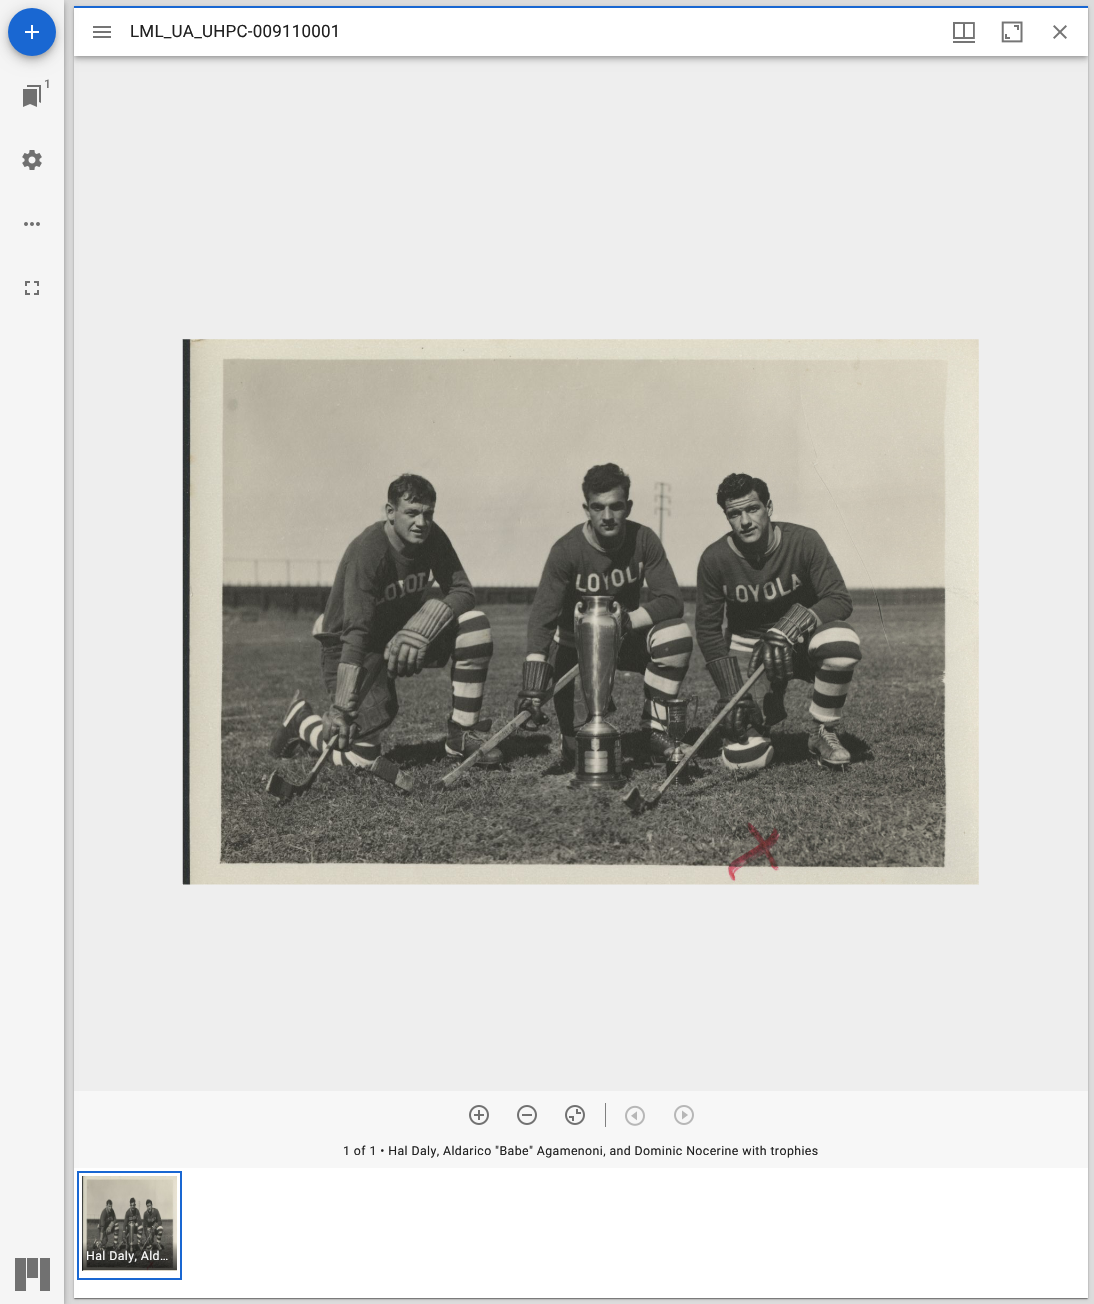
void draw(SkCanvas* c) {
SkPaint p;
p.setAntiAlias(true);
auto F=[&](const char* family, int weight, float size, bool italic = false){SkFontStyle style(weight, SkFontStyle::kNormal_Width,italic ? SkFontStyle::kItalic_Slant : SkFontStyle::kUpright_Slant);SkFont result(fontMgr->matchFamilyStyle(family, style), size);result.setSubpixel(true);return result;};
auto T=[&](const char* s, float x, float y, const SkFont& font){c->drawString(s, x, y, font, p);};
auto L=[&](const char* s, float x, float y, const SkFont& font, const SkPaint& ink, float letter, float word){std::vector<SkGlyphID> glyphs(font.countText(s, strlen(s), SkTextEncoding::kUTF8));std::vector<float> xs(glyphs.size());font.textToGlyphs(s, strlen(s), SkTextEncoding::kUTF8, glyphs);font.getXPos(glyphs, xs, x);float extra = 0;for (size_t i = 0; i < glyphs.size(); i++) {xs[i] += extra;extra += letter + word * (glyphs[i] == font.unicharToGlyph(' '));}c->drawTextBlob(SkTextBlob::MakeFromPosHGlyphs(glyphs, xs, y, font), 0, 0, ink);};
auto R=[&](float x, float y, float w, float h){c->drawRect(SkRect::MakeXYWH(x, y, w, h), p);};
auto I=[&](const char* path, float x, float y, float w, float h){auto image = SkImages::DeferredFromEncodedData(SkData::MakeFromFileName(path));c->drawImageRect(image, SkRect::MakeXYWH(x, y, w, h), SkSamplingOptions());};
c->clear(0xffdcdcdc);
p.setColor(0x33000000);
p.setMaskFilter(SkMaskFilter::MakeBlur(kNormal_SkBlurStyle, .5));
c->drawRect(SkRect::MakeXYWH(75,9,1012,1290),p);
p.setMaskFilter(nullptr);
p.setMaskFilter(SkMaskFilter::MakeBlur(kNormal_SkBlurStyle, .5));
c->drawRect(SkRect::MakeXYWH(74,7,1014,1292),p);
p.setMaskFilter(nullptr);
p.setMaskFilter(SkMaskFilter::MakeBlur(kNormal_SkBlurStyle, 1.5));
c->drawRect(SkRect::MakeXYWH(74,7,1014,1292),p);
p.setMaskFilter(nullptr);
p.setColor(0xffeeeeee);
R(74,56,1014,1035);
c->save();
c->clipRect(SkRect::MakeXYWH(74,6,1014,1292));
p.setColor(0x1f000000);
p.setMaskFilter(SkMaskFilter::MakeBlur(kNormal_SkBlurStyle, 5));
c->drawRect(SkRect::MakeXYWH(74,7,1014,50),p);
p.setMaskFilter(nullptr);
p.setColor(0x24000000);
p.setMaskFilter(SkMaskFilter::MakeBlur(kNormal_SkBlurStyle, 2.5));
c->drawRect(SkRect::MakeXYWH(74,10,1014,50),p);
p.setMaskFilter(nullptr);
c->restore();
p.setColor(0x33000000);
p.setMaskFilter(SkMaskFilter::MakeBlur(kNormal_SkBlurStyle, 2));
c->drawRect(SkRect::MakeXYWH(75,9,1012,48),p);
p.setMaskFilter(nullptr);
p.setColor(0xffffffff);
R(74,8,1014,48);
p.setColor(0xff1967d2);
R(74,6,1014,2);
p.setColor(0xfff7f7f7);
R(74,1091,1014,77);
p.setColor(0xffffffff);
R(74,1168,1014,130);
p.setStroke(true);
p.setStrokeWidth(2);
p.setColor(0xff1967d2);
c->drawRect(SkRect::MakeXYWH(78,1172,103,107),p);
p.setStroke(false);
p.setColor(0x1f000000);
p.setMaskFilter(SkMaskFilter::MakeBlur(kNormal_SkBlurStyle, 5));
c->drawRect(SkRect::MakeXYWH(0,1,64,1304),p);
p.setMaskFilter(nullptr);
p.setColor(0x24000000);
p.setMaskFilter(SkMaskFilter::MakeBlur(kNormal_SkBlurStyle, 2.5));
c->drawRect(SkRect::MakeXYWH(0,4,64,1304),p);
p.setMaskFilter(nullptr);
p.setColor(0x33000000);
p.setMaskFilter(SkMaskFilter::MakeBlur(kNormal_SkBlurStyle, 2));
c->drawRect(SkRect::MakeXYWH(1,3,62,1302),p);
p.setMaskFilter(nullptr);
p.setColor(0xfff5f5f5);
R(0,0,64,1304);
p.setColor(0x1f000000);
p.setMaskFilter(SkMaskFilter::MakeBlur(kNormal_SkBlurStyle, 9));
c->drawRoundRect(SkRect::MakeXYWH(8,9,48,48),24,24,p);
p.setMaskFilter(nullptr);
p.setColor(0x24000000);
p.setMaskFilter(SkMaskFilter::MakeBlur(kNormal_SkBlurStyle, 5));
c->drawRoundRect(SkRect::MakeXYWH(8,14,48,48),24,24,p);
p.setMaskFilter(nullptr);
p.setColor(0x33000000);
p.setMaskFilter(SkMaskFilter::MakeBlur(kNormal_SkBlurStyle, 2.5));
c->drawRoundRect(SkRect::MakeXYWH(9,12,46,46),23,23,p);
p.setMaskFilter(nullptr);
p.setColor(0xff1967d2);
c->drawCircle(32,32,24,p);
I("1.png",25,25,14,14);
auto f1 = F("Roboto",500,12);
p.setColor(0xff717171);
T("1",44,88,f1);
I("2.png",23,85,18,22);
I("3.png",22,150,20,20);
I("4.png",24,222,16,4);
I("5.png",25,281,14,14);
R(15,1258,11,33);
R(40,1258,10,33);
R(27,1258,11,20);
I("6.png",93,26,18,12);
auto f2 = F("Roboto",400,17);
p.setColor(0xff202020);
L("LML_UA_UHPC-009110001",130,37,f2,p,.2,0);
I("7.png",953,22,22,21);
I("8.png",1001,21,22,22);
I("9.png",1053,25,14,14);
I("10.png",182,339,797,546);
I("11.png",469,1105,20,20);
I("12.png",517,1105,20,20);
I("13.png",565,1105,20,20);
p.setColor(0xff808080);
R(605,1103,1,24);
I("14.png",625,1105,20,21);
I("15.png",674,1105,20,20);
auto f3 = F("Roboto",400,12.35);
p.setColor(0xff202020);
L("1 of 1 • Hal Daly, Aldarico \"Babe\" Agamenoni, and Dominic Nocerine with trophies",343,1155,f3,p,.4,0);
I("16.png",82,1176,95,95);
p.setColor(0xffffffff);
L("Hal Daly, Ald…",86,1260,f3,p,.4,0);
}
